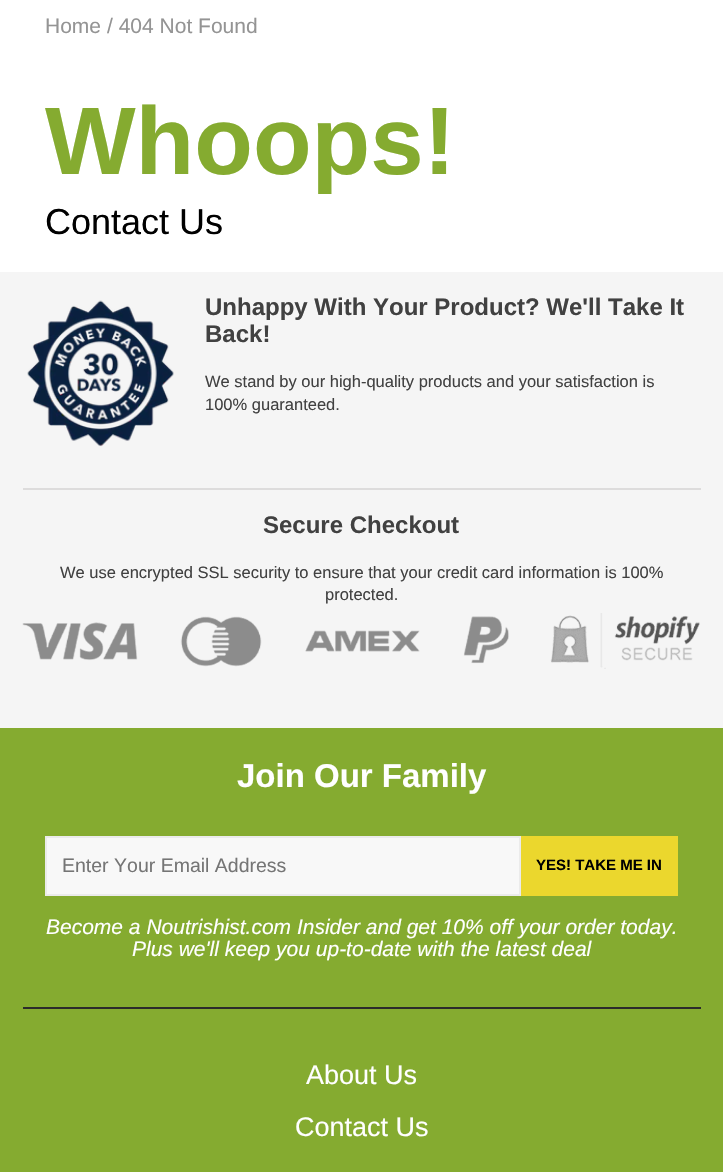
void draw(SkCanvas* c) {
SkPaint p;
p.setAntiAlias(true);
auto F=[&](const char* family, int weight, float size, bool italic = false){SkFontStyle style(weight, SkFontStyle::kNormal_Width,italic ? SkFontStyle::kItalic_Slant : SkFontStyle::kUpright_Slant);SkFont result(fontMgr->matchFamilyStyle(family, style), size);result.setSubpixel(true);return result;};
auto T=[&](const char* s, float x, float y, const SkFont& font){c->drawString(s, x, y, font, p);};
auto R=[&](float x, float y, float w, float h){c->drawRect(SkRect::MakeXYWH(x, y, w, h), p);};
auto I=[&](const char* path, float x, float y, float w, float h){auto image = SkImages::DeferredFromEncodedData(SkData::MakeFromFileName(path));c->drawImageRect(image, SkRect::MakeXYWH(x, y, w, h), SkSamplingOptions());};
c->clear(0xffffffff);
auto f1 = F("Liberation Sans",400,21);
p.setColor(0xff949494);
T("Home",45,33,f1);
T("/ 404 Not Found",107,33,f1);
auto f2 = F("Liberation Sans",700,96);
p.setColor(0xff85ab30);
T("Whoops!",45,174,f2);
auto f3 = F("Liberation Sans",400,36);
p.setColor(0xff000000);
T("Contact Us",45,234,f3);
p.setColor(0xfff5f5f5);
R(0,272,723,456);
I("1.png",27,300,147,147);
auto f4 = F("Liberation Sans",700,24);
p.setColor(0xff414141);
T("Unhappy With Your Product? We'll Take It",205,315,f4);
T("Back!",205,342,f4);
auto f5 = F("Liberation Sans",400,16.5);
T("We stand by our high-quality products and your satisfaction is",205,387,f5);
T("100% guaranteed.",205,410,f5);
p.setColor(0xffdddcdc);
R(23,488,678,2);
p.setColor(0xff414141);
T("Secure Checkout",263,533,f4);
T("We use encrypted SSL security to ensure that your credit card information is 100%",60,578,f5);
T("protected.",325,600,f5);
I("2.png",22,613,678,56);
p.setColor(0xff85ab30);
R(0,728,723,444);
auto f6 = F("Liberation Sans",700,33);
p.setColor(0xffffffff);
T("Join Our Family",237,787,f6);
p.setColor(0xfff8f8f8);
c->drawRect(SkRect::MakeXYWH(46,837,474,58),p);
p.setStroke(true);
p.setStrokeWidth(2);
p.setColor(0xffebebeb);
c->drawRect(SkRect::MakeXYWH(46,837,474,58),p);
auto f7 = F("Liberation Sans",400,19.5);
p.setStroke(false);
p.setColor(0xff757575);
T("Enter Your Email Address",62,872,f7);
p.setColor(0xffebd72d);
R(521,836,157,60);
auto f8 = F("Liberation Sans",700,15);
p.setColor(0xff000000);
T("YES! TAKE ME IN",536,870,f8);
auto f9 = F("Liberation Sans",400,21,true);
p.setColor(0xffffffff);
T("Become a Noutrishist.com Insider and get 10% off your order today.",46,934,f9);
T("Plus we'll keep you up-to-date with the latest deal",132,956,f9);
p.setColor(0xff2b2b2b);
R(23,1007,678,2);
auto f10 = F("Liberation Sans",400,27);
p.setColor(0xffffffff);
T("About Us",306,1084,f10);
T("Contact Us",295,1136,f10);
}
